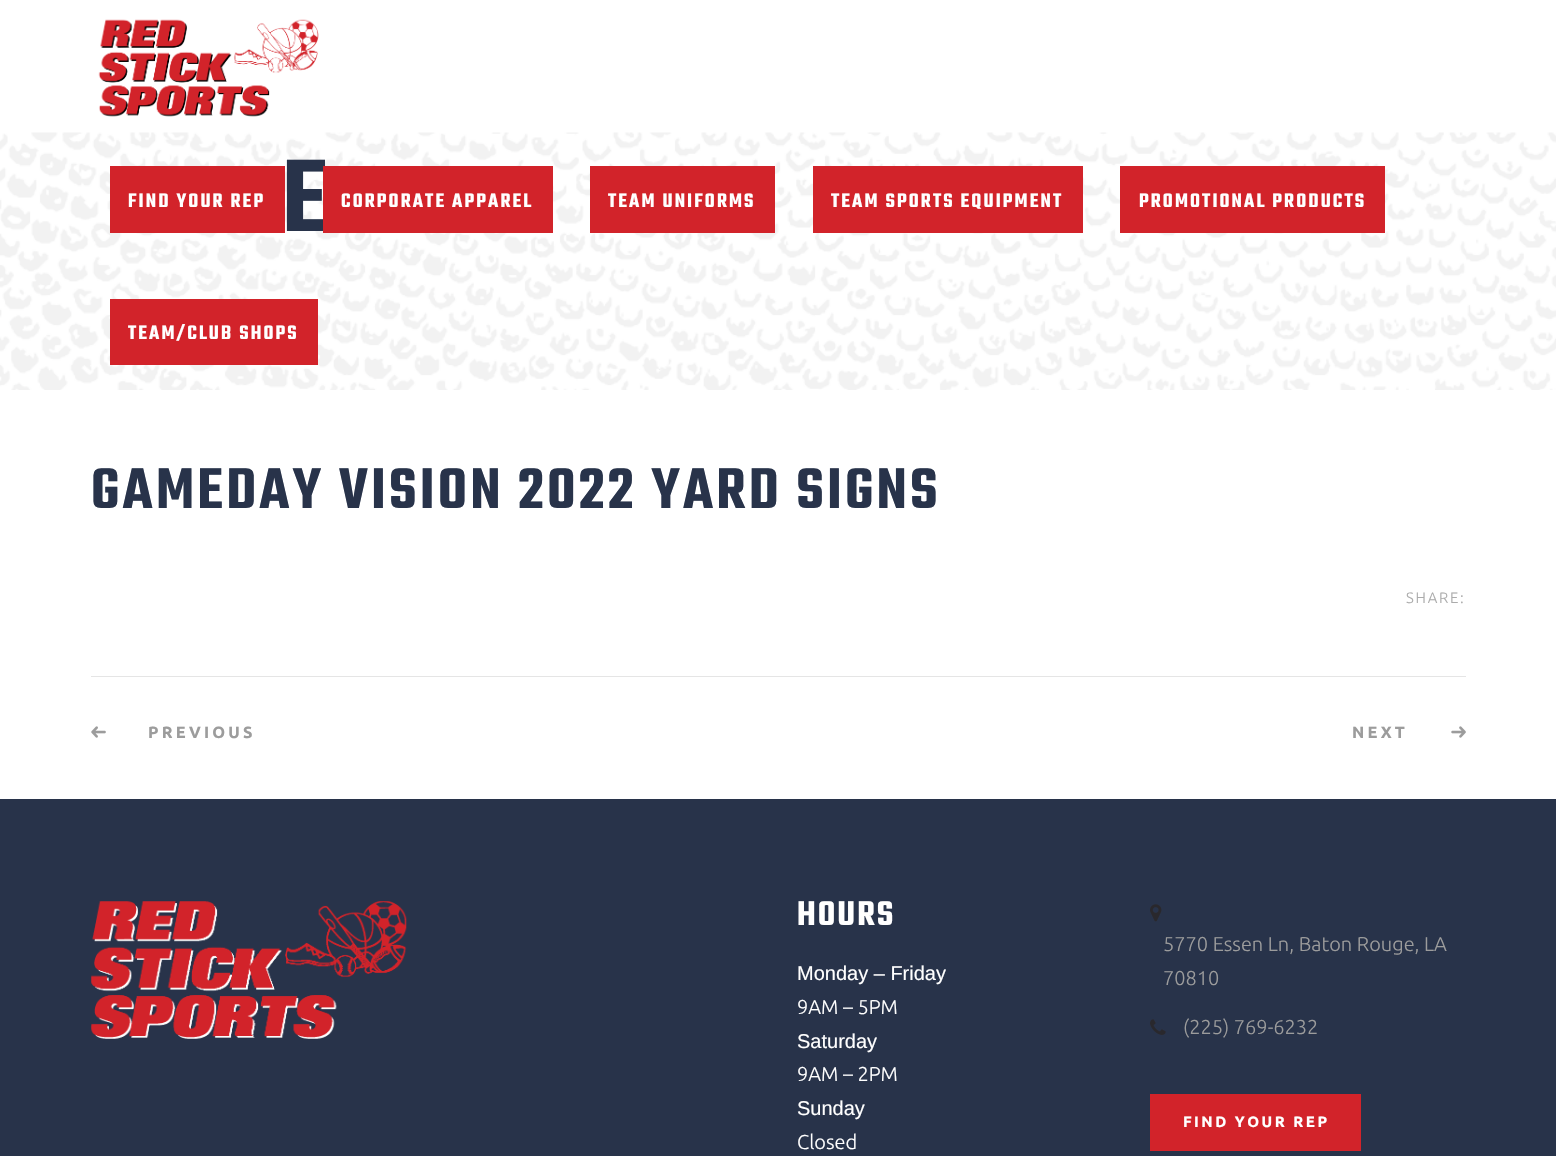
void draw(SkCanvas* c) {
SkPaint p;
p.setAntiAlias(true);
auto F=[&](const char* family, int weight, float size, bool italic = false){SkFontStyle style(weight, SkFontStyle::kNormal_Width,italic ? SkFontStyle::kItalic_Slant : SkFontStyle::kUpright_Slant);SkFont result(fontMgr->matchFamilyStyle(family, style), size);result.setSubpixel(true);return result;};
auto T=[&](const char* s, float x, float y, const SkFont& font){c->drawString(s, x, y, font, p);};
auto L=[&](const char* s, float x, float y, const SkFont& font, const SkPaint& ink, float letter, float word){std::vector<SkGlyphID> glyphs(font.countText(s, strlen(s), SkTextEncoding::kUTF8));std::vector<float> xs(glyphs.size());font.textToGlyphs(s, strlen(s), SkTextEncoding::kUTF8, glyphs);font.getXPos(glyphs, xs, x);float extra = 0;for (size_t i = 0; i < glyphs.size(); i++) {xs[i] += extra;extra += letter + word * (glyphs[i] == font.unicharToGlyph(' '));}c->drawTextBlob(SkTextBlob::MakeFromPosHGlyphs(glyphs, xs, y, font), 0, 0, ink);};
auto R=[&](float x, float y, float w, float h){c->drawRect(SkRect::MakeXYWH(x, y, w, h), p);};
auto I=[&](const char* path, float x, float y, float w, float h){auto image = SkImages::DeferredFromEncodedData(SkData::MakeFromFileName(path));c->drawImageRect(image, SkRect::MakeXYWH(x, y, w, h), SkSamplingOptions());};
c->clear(0xffffffff);
I("1.png",0,132,1556,258);
auto f1 = F("Teko",600,112);
p.setColor(0xff28334a);
L("E",282,231,f1,p,6,0);
auto f2 = F("Teko",600,62.5);
L("GAMEDAY VISION 2022 YARD SIGNS",91,508,f2,p,3.1,0);
p.setColor(0xffe5e5e5);
R(91,676,1375,1);
auto f3 = F("Ubuntu",300,15);
p.setColor(0xffababab);
L("SHARE:",1406,603,f3,p,1.75,0);
I("2.png",91,726,15,12);
auto f4 = F("Ubuntu",700,16.25);
p.setColor(0xff9c9c9c);
L("PREVIOUS",148,738,f4,p,3.25,0);
L("NEXT",1352,738,f4,p,3.25,0);
I("3.png",1451,726,15,12);
I("4.png",98,19,221,98);
p.setColor(0xffd2232a);
R(110,166,175,67);
auto f5 = F("Teko",600,21.25);
p.setColor(0xffffffff);
L("FIND YOUR REP",128,207,f5,p,2.1,0);
p.setColor(0xffd2232a);
R(323,166,230,67);
p.setColor(0xffffffff);
L("CORPORATE APPAREL",341,207,f5,p,2.1,0);
p.setColor(0xffd2232a);
R(590,166,185,67);
p.setColor(0xffffffff);
L("TEAM UNIFORMS",608,207,f5,p,2.1,0);
p.setColor(0xffd2232a);
R(813,166,270,67);
p.setColor(0xffffffff);
L("TEAM SPORTS EQUIPMENT",831,207,f5,p,2.1,0);
p.setColor(0xffd2232a);
R(1120,166,265,67);
p.setColor(0xffffffff);
L("PROMOTIONAL PRODUCTS",1139,207,f5,p,2.1,0);
p.setColor(0xffd2232a);
R(110,299,208,66);
p.setColor(0xffffffff);
L("TEAM/CLUB SHOPS",128,339,f5,p,2.1,0);
p.setColor(0xff28334a);
R(0,799,1556,357);
I("5.png",91,901,316,138);
auto f6 = F("Teko",600,37.5);
p.setColor(0xffffffff);
L("HOURS",797,925,f6,p,2,0);
auto f7 = F("Liberation Sans",400,20);
T("Monday – Friday",797,980,f7);
auto f8 = F("Ubuntu",300,20);
T("9AM – 5PM",797,1014,f8);
T("Saturday",797,1048,f7);
T("9AM – 2PM",797,1081,f8);
T("Sunday",797,1115,f7);
T("Closed",797,1149,f8);
I("6.png",1150,904,12,18);
p.setColor(0xff9c9c9c);
T("5770 Essen Ln, Baton Rouge, LA",1163,951,f8);
T("70810",1163,985,f8);
I("7.png",1150,1019,16,16);
T("(225) 769-6232",1183,1034,f8);
p.setColor(0xffd2232a);
R(1150,1094,211,57);
auto f9 = F("Ubuntu",700,15);
p.setColor(0xffffffff);
L("FIND YOUR REP",1183,1127,f9,p,2.5,0);
}
